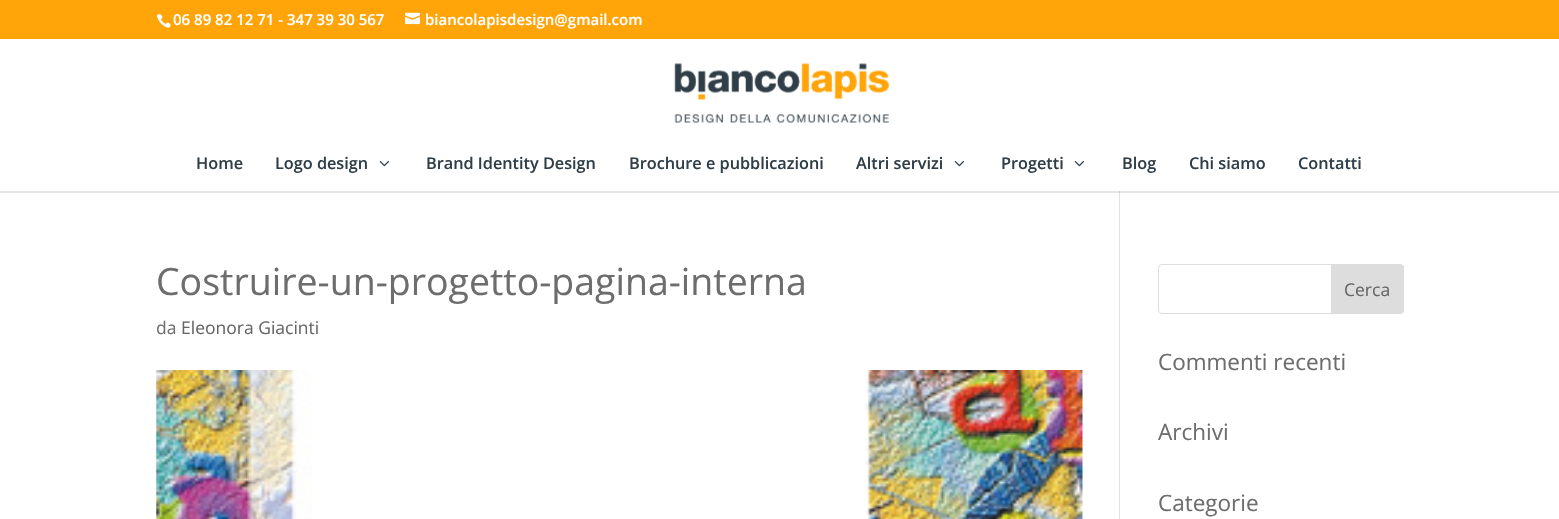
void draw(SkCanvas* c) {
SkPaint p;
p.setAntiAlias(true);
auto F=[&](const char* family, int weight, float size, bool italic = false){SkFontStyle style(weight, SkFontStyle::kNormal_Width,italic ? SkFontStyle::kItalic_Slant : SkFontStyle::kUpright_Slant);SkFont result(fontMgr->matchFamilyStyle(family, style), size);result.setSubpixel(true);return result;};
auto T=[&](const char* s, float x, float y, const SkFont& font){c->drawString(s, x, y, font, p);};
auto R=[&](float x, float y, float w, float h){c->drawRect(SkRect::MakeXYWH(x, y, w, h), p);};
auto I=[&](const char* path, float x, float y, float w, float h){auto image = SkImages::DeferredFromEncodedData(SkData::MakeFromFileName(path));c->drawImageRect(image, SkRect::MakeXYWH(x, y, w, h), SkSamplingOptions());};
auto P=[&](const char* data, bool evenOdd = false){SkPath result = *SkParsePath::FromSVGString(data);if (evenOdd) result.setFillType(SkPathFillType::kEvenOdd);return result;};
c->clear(0xffffffff);
p.setColor(0xffe6e6e6);
R(0,191,1559,2);
p.setColor(0xffffa409);
R(0,0,1559,39);
I("1.png",156,14,15,14);
auto f1 = F("Open Sans",600,15);
p.setColor(0xffffffff);
T("06 89 82 12 71 - 347 39 30 567",173,25,f1);
I("2.png",405,12,15,13);
T("biancolapisdesign@gmail.com",425,25,f1);
I("3.png",674,63,215,60);
auto f2 = F("Open Sans",600,16.25);
p.setColor(0xff303e48);
T("Home",196,169,f2);
T("Logo design",275,169,f2);
I("4.png",379,161,10,6);
T("Brand Identity Design",426,169,f2);
T("Brochure e pubblicazioni",629,169,f2);
T("Altri servizi",856,169,f2);
I("4.png",954,161,10,6);
T("Progetti",1001,169,f2);
I("4.png",1074,161,10,6);
T("Blog",1122,169,f2);
T("Chi siamo",1189,169,f2);
T("Contatti",1298,169,f2);
p.setColor(0xffe2e2e2);
R(1119,191,1,328);
p.setColor(0xffcbcbcb);
R(1119,191,1,2);
auto f3 = F("Open Sans",400,37.5);
p.setColor(0xff6d6d6d);
T("Costruire-un-progetto-pagina-interna",156,295,f3);
auto f4 = F("Open Sans",400,17.5);
T("da",156,334,f4);
p.setColor(0xff666666);
T("Eleonora Giacinti",181,334,f4);
I("5.png",156,370,927,149);
p.setStroke(true);
p.setStrokeWidth(1);
p.setColor(0xffdddddd);
c->drawRoundRect(SkRect::MakeXYWH(1158.5,264.5,245,49),3.5,3.5,p);
p.setStroke(false);
c->drawPath(P("M1331.5 264.5h68.5c2 0 3.5 1.5 3.5 3.5v42c0 2-1.5 3.5-3.5 3.5h-68.5z"),p);
p.setStroke(true);
c->drawPath(P("M1331.5 264.5h68.5c2 0 3.5 1.5 3.5 3.5v42c0 2-1.5 3.5-3.5 3.5h-68.5z"),p);
p.setStroke(false);
p.setColor(0xff666666);
T("Cerca",1344,296,f4);
auto f5 = F("Open Sans",400,22.5);
p.setColor(0xff6d6d6d);
T("Commenti recenti",1158,370,f5);
T("Archivi",1158,440,f5);
T("Categorie",1158,511,f5);
}
